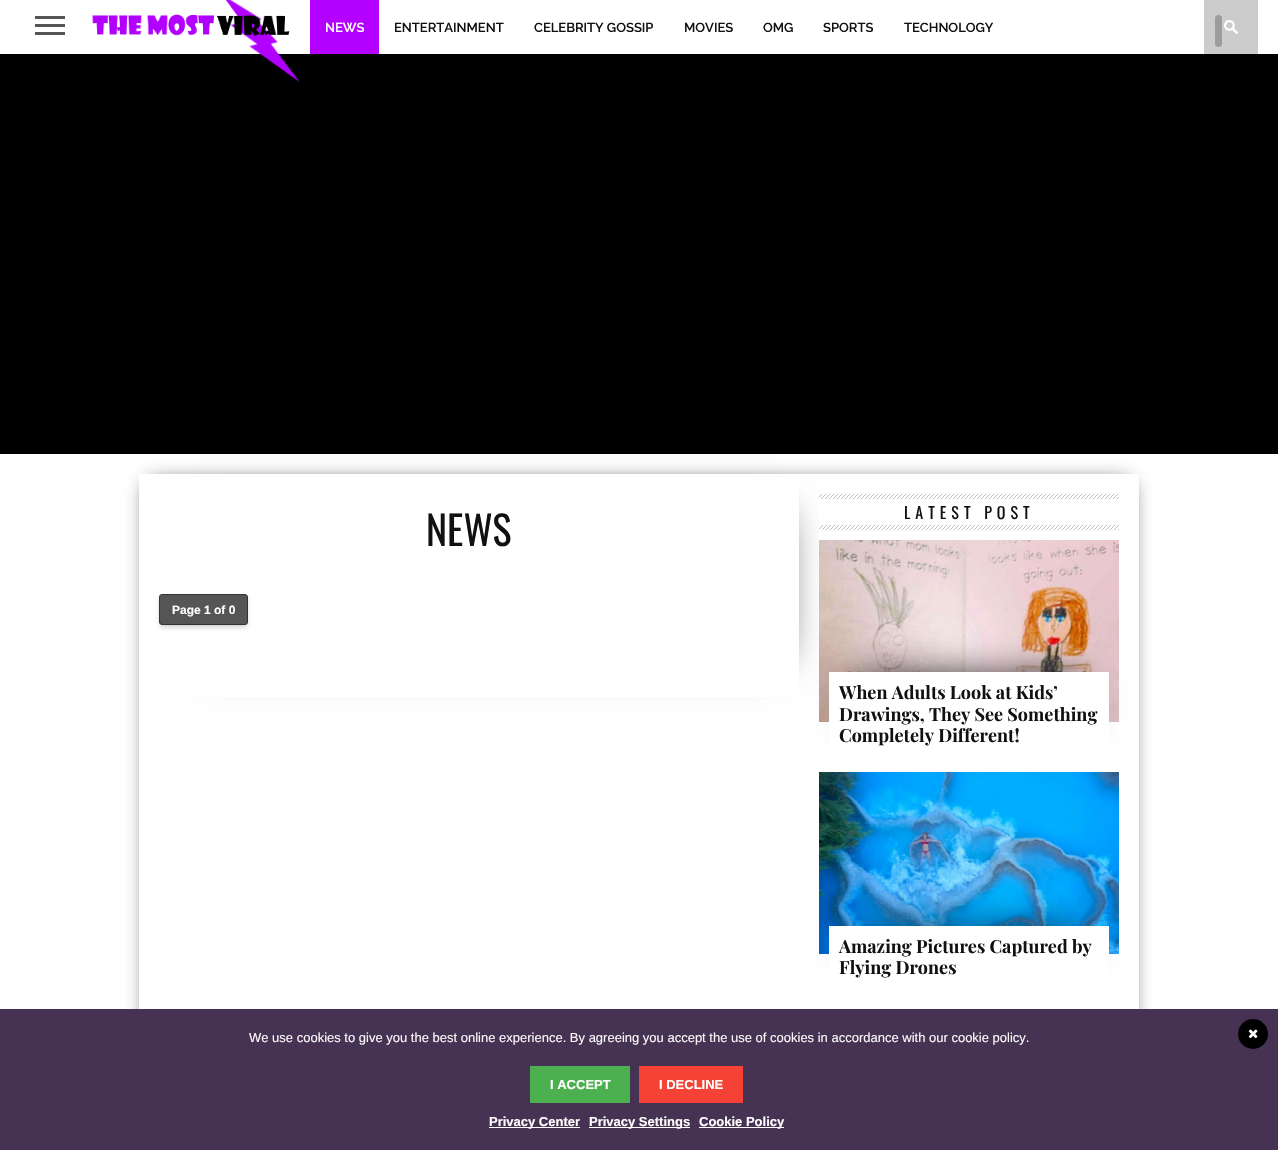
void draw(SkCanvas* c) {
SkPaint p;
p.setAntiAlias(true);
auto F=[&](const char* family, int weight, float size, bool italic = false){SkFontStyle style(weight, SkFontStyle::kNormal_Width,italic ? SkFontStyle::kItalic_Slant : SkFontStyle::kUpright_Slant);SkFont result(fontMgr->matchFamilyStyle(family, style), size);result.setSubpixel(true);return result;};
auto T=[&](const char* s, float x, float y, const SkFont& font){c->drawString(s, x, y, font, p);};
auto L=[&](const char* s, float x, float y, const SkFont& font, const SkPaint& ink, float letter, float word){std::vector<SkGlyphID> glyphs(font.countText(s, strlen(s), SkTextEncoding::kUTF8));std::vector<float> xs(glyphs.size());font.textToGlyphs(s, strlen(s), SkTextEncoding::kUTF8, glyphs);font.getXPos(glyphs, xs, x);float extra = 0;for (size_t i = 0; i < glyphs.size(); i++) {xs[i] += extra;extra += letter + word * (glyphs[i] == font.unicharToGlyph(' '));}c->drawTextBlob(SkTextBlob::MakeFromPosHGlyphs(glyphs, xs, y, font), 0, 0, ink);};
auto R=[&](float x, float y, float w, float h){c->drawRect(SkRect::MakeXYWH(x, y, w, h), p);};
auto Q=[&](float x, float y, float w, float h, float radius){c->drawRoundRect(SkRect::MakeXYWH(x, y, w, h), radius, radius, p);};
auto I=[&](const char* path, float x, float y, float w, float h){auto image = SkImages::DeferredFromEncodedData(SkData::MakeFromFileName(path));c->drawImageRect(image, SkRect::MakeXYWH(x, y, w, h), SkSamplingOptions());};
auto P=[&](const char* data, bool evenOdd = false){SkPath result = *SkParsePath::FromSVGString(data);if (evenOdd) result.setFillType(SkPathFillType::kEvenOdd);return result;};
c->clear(0xffffffff);
p.setColor(0xff555555);
R(35,16,30,3);
R(35,24,30,3);
R(35,32,30,3);
p.setColor(0xff000000);
R(0,54,1278,400);
I("1.png",92,0,208,82);
p.setColor(0xffb300ff);
R(310,0,69,54);
auto f1 = F("Raleway",600,13);
p.setColor(0xffffffff);
T("NEWS",325,32,f1);
p.setColor(0xff111111);
T("ENTERTAINMENT",394,32,f1);
T("CELEBRITY GOSSIP",534,32,f1);
T("MOVIES",684,32,f1);
T("OMG",763,32,f1);
T("SPORTS",823,32,f1);
T("TECHNOLOGY",904,32,f1);
p.setColor(0xffcccccc);
R(1204,0,54,54);
I("2.png",1224,20,14,14);
p.setColor(0xff9c9c9c);
Q(1215,15,7,32,3.5);
c->save();
c->clipPath(P("M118 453h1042v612h-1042zm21 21h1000v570h-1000z",true),true);
p.setColor(0xff000000);
p.setMaskFilter(SkMaskFilter::MakeBlur(kNormal_SkBlurStyle, 10));
c->drawRect(SkRect::MakeXYWH(149,484,980,550),p);
p.setMaskFilter(nullptr);
c->restore();
c->save();
c->clipPath(P("M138 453h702v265h-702zm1 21h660v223h-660z",true),true);
p.setMaskFilter(SkMaskFilter::MakeBlur(kNormal_SkBlurStyle, 20));
c->drawRect(SkRect::MakeXYWH(199,514,580,143),p);
p.setMaskFilter(nullptr);
c->restore();
auto f2 = F("Oswald",400,40);
p.setColor(0xff111111);
T("NEWS",426,546,f2);
p.setColor(0xffcccccc);
p.setMaskFilter(SkMaskFilter::MakeBlur(kNormal_SkBlurStyle, 2.5));
c->drawRoundRect(SkRect::MakeXYWH(160,598,87,29),2,2,p);
p.setMaskFilter(nullptr);
p.setColor(0xff555555);
c->drawRoundRect(SkRect::MakeXYWH(159.5,594.5,88,30),2.5,2.5,p);
p.setStroke(true);
p.setStrokeWidth(1);
p.setColor(0xff333333);
c->drawRoundRect(SkRect::MakeXYWH(159.5,594.5,88,30),2.5,2.5,p);
auto f3 = F("Liberation Sans",700,12);
p.setStroke(false);
p.setColor(0xffffffff);
T("Page 1 of 0",172,614,f3);
R(819,512,6,147);
I("3.png",819,494,300,36);
R(819,499,300,26);
auto f4 = F("Oswald",400,16);
p.setColor(0xff111111);
L("LATEST POST",904,519,f4,p,5,0);
I("4.png",819,540,300,182);
p.setColor(0xff000000);
p.setMaskFilter(SkMaskFilter::MakeBlur(kNormal_SkBlurStyle, 20));
c->drawRect(SkRect::MakeXYWH(859,680,220,40),p);
p.setMaskFilter(nullptr);
p.setColor(0xffffffff);
R(829,672,280,94);
auto f5 = F("Playfair Display",700,18);
p.setColor(0xff111111);
T("When Adults Look at Kids’",839,699,f5);
T("Drawings, They See Something",839,721,f5);
T("Completely Different!",839,742,f5);
I("5.png",819,772,300,182);
p.setColor(0xff000000);
p.setMaskFilter(SkMaskFilter::MakeBlur(kNormal_SkBlurStyle, 20));
c->drawRect(SkRect::MakeXYWH(859,934,220,18),p);
p.setMaskFilter(nullptr);
p.setColor(0xffffffff);
R(829,926,280,72);
p.setColor(0xff111111);
T("Amazing Pictures Captured by",839,953,f5);
T("Flying Drones",839,974,f5);
p.setColor(0xff463252);
R(0,1009,1278,141);
auto f6 = F("Liberation Sans",400,13);
p.setColor(0xfffbf8f8);
T("We use cookies to give you the best online experience. By agreeing you accept the use of cookies in accordance with our cookie policy.",249,1042,f6);
p.setColor(0xff000000);
c->drawCircle(1253,1034,15,p);
I("6.png",1248,1029,10,10);
p.setColor(0xff4caf50);
R(530,1066,100,37);
auto f7 = F("Liberation Sans",700,13);
p.setColor(0xffffffff);
T("I ACCEPT",550,1089,f7);
p.setColor(0xfff44336);
R(639,1066,104,37);
p.setColor(0xffffffff);
T("I DECLINE",659,1089,f7);
R(489,1127,91,1);
T("Privacy Center",489,1126,f7);
R(589,1127,101,1);
T("Privacy Settings",589,1126,f7);
R(699,1127,85,1);
T("Cookie Policy",699,1126,f7);
}
